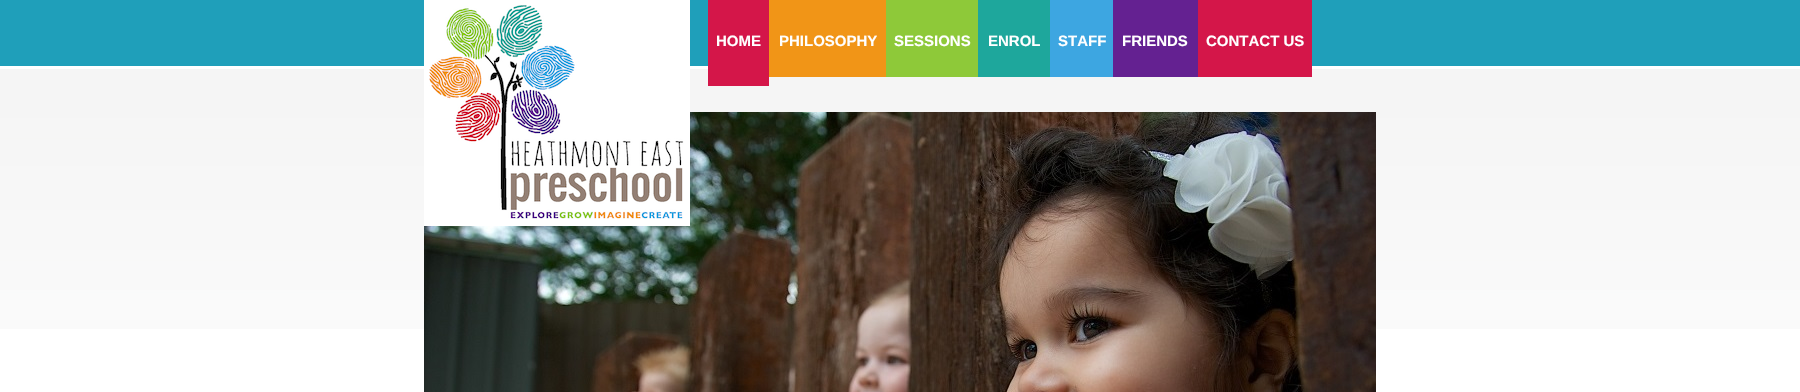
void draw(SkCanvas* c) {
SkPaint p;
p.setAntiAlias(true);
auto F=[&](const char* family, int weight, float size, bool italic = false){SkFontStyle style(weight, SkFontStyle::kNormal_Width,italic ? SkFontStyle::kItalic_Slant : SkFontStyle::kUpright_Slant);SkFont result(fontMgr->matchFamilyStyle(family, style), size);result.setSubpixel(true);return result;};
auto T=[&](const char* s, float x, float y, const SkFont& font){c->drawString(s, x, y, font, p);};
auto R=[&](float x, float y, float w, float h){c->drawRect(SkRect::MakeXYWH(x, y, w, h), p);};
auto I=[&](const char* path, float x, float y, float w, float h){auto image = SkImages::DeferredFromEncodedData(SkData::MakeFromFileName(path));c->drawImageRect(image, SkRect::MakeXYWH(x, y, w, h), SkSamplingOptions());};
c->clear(0xffffffff);
I("1.png",0,0,1800,329);
I("3.png",424,112,952,280);
p.setColor(0xffffffff);
R(424,0,266,226);
I("2.png",429,5,255,214);
p.setColor(0xffd41649);
R(708,0,61,86);
auto f1 = F("Liberation Sans",700,15);
p.setColor(0xffffffff);
T("HOME",716,46,f1);
p.setColor(0xfff19517);
R(769,0,117,77);
p.setColor(0xffffffff);
T("PHILOSOPHY",779,46,f1);
p.setColor(0xff8ec939);
R(886,0,92,77);
p.setColor(0xffffffff);
T("SESSIONS",894,46,f1);
p.setColor(0xff1ea79c);
R(978,0,72,77);
p.setColor(0xffffffff);
T("ENROL",988,46,f1);
p.setColor(0xff3da6e1);
R(1050,0,63,77);
p.setColor(0xffffffff);
T("STAFF",1058,46,f1);
p.setColor(0xff642191);
R(1113,0,85,77);
p.setColor(0xffffffff);
T("FRIENDS",1122,46,f1);
p.setColor(0xffd41649);
R(1198,0,114,77);
p.setColor(0xffffffff);
T("CONTACT US",1206,46,f1);
}
